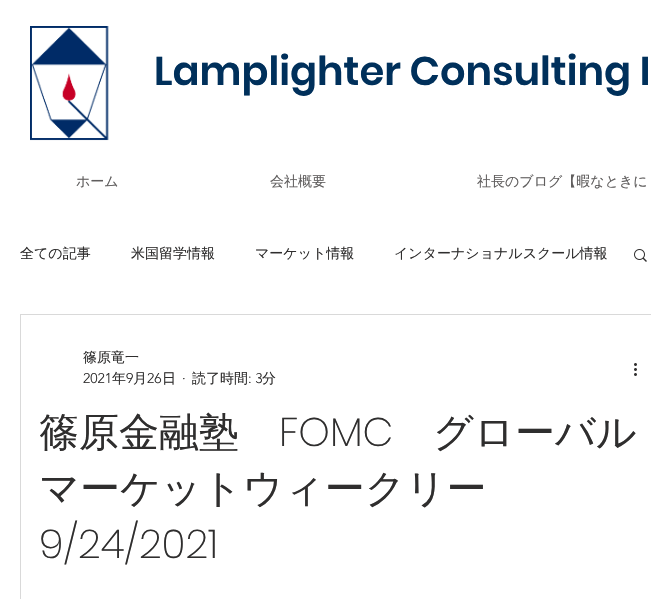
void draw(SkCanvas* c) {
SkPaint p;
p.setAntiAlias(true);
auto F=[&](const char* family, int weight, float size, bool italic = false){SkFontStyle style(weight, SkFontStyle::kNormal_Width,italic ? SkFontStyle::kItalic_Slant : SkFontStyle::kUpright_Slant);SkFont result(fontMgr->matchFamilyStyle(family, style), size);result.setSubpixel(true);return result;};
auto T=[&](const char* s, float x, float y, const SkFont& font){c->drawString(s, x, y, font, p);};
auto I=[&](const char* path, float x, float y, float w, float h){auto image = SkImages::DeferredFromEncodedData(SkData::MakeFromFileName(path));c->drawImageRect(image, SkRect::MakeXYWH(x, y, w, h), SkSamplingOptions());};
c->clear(0xffffffff);
I("1.png",30,26,79,115);
auto f1 = F("Poppins",600,40);
p.setColor(0xff00305b);
T("Lamplighter Consulting I",154,85,f1);
auto f2 = F("WenQuanYi Zen Hei",500,14);
p.setColor(0xff605e5e);
T("ホーム",76,186,f2);
T("会社概要",270,186,f2);
T("社長のブログ【暇なときに",477,186,f2);
p.setColor(0xff2f2e2e);
T("全ての記事",20,258,f2);
T("米国留学情報",131,258,f2);
T("マーケット情報",255,258,f2);
T("インターナショナルスクール情報",394,258,f2);
I("2.png",634,249,13,13);
p.setStroke(true);
p.setStrokeWidth(1);
p.setColor(0xffd9d9d9);
c->drawRect(SkRect::MakeXYWH(20.5,314.5,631,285),p);
p.setStroke(false);
p.setColor(0xff2f2e2e);
T("篠原竜一",83,362,f2);
auto f3 = F("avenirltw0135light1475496",300,14);
T("2021",83,383,f3);
T("年",112,383,f2);
T("9",126,383,f3);
T("月",133,383,f2);
T("26",147,383,f3);
T("日",162,383,f2);
T("·",182,383,f3);
T("読了時間",192,383,f2);
T(": 3",248,383,f3);
T("分",262,383,f2);
I("3.png",634,363,3,13);
auto f4 = F("WenQuanYi Zen Hei",500,40);
T("篠原金融塾",39,446,f4);
auto f5 = F("Poppins",200,40);
T("FOMC",279,446,f5);
T("グローバル",433,446,f4);
T("マーケットウィークリー",39,502,f4);
T("9/24/2021",39,558,f5);
}
